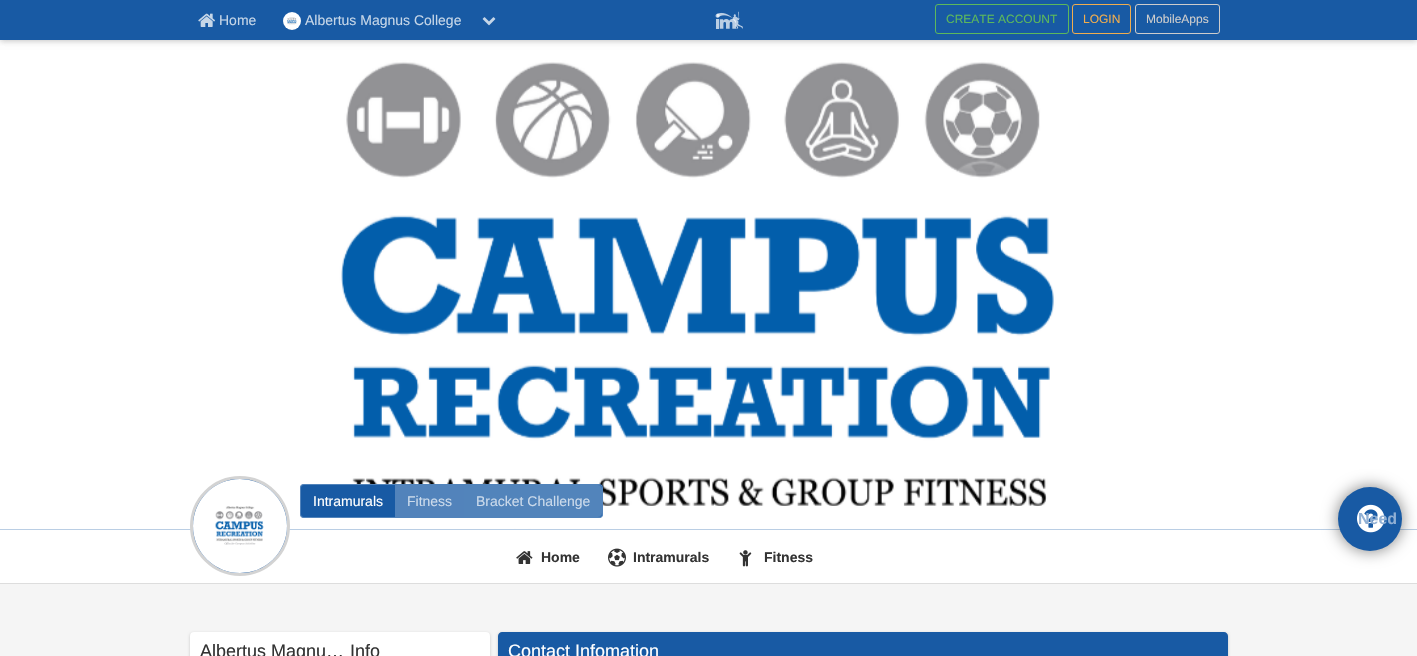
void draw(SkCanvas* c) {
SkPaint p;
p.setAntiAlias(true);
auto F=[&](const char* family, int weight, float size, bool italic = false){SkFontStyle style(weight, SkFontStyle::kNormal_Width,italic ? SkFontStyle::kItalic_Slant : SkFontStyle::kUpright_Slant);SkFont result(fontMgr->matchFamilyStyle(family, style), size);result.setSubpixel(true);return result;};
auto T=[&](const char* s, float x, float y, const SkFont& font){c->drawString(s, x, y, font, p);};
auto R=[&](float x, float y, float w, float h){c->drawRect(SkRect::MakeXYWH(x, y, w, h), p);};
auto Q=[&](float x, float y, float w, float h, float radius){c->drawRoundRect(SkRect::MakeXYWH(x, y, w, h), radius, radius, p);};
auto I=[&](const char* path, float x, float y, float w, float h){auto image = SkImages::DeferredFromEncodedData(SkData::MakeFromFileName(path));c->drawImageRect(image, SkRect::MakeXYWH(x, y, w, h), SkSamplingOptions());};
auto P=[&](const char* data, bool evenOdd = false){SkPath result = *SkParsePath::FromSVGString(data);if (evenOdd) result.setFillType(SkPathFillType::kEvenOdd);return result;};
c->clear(0xfff5f5f5);
p.setColor(0xff185aa4);
R(0,529,1417,1);
I("5.png",0,40,1417,490);
p.setColor(0x1f000000);
p.setMaskFilter(SkMaskFilter::MakeBlur(kNormal_SkBlurStyle, 3));
c->drawRect(SkRect::MakeXYWH(0,1,1417,40),p);
p.setMaskFilter(nullptr);
p.setMaskFilter(SkMaskFilter::MakeBlur(kNormal_SkBlurStyle, 3));
c->drawRect(SkRect::MakeXYWH(0,1,1417,40),p);
p.setMaskFilter(nullptr);
p.setColor(0xff185aa4);
R(0,0,1417,40);
I("1.png",198,13,17,14);
auto f1 = F("Liberation Sans",400,14);
p.setColor(0xffc5d6e8);
T("Home",219,25,f1);
I("2.png",283,12,18,18);
T("Albertus Magnus College",305,25,f1);
I("3.png",482,17,14,9);
I("4.png",715,11,28,18);
p.setStroke(true);
p.setStrokeWidth(1);
p.setColor(0xff5cb85c);
c->drawRoundRect(SkRect::MakeXYWH(935.5,4.5,133,29),2.5,2.5,p);
auto f2 = F("Liberation Sans",400,12);
p.setStroke(false);
T("CREATE ACCOUNT",946,23,f2);
p.setStroke(true);
p.setColor(0xfff0ad4e);
c->drawRoundRect(SkRect::MakeXYWH(1072.5,4.5,58,29),2.5,2.5,p);
p.setStroke(false);
T("LOGIN",1083,23,f2);
p.setStroke(true);
p.setColor(0xffcccccc);
c->drawRoundRect(SkRect::MakeXYWH(1135.5,4.5,84,29),2.5,2.5,p);
p.setStroke(false);
T("MobileApps",1146,23,f2);
p.setColor(0xffffffff);
R(0,530,1417,53);
p.setColor(0xffdddddd);
R(0,583,1417,1);
p.setColor(0xff185aa4);
c->drawCircle(240,526,48.5,p);
p.setStroke(true);
p.setStrokeWidth(3);
p.setColor(0xffd3d3d3);
c->drawCircle(240,526,48.5,p);
I("6.png",193,479,94,94);
p.setStroke(false);
p.setColor(0xff185aa4);
Q(300,484,303,34,4);
p.setStroke(true);
p.setStrokeWidth(1);
p.setColor(0x40ffffff);
c->drawRoundRect(SkRect::MakeXYWH(300.5,484.5,302,33),3.5,3.5,p);
p.setStroke(false);
p.setColor(0xff185aa4);
Q(301,485,94,32,4);
p.setColor(0xffffffff);
T("Intramurals",313,506,f1);
p.setColor(0xff5283bb);
R(395,485,69,32);
p.setColor(0xffcbdaeb);
T("Fitness",407,506,f1);
p.setColor(0x40ffffff);
c->drawPath(P("M464 485h134c2 0 4 2 4 4v24c0 2-2 4-4 4h-134z"),p);
p.setColor(0xffcbdaeb);
T("Bracket Challenge",476,506,f1);
I("7.png",516,551,17,13);
auto f3 = F("Liberation Sans",700,14);
p.setColor(0xff333333);
T("Home",541,562,f3);
I("8.png",608,548,18,19);
T("Intramurals",633,562,f3);
I("9.png",739,550,13,17);
T("Fitness",764,562,f3);
p.setColor(0x80000000);
p.setMaskFilter(SkMaskFilter::MakeBlur(kNormal_SkBlurStyle, 8));
c->drawRoundRect(SkRect::MakeXYWH(1338,487,64,64),32,32,p);
p.setMaskFilter(nullptr);
p.setColor(0xff185aa4);
c->drawCircle(1370,519,32,p);
I("10.png",1357,504,28,29);
auto f4 = F("Liberation Sans",700,16);
p.setColor(0xff91b0d4);
T("Need",1358,524,f4);
p.setColor(0x33000000);
p.setMaskFilter(SkMaskFilter::MakeBlur(kNormal_SkBlurStyle, 1.5));
c->drawRoundRect(SkRect::MakeXYWH(190,633,300,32),4,4,p);
p.setMaskFilter(nullptr);
p.setColor(0xffffffff);
Q(190,632,300,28,4);
auto f5 = F("Liberation Sans",400,18);
p.setColor(0xff333333);
T("Albertus Magnu…",200,657,f5);
T("Info",350,657,f5);
p.setColor(0x33000000);
p.setMaskFilter(SkMaskFilter::MakeBlur(kNormal_SkBlurStyle, 1.5));
c->drawRoundRect(SkRect::MakeXYWH(498,633,730,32),4,4,p);
p.setMaskFilter(nullptr);
p.setColor(0xff185aa4);
c->drawPath(P("M502 632h722c2 0 4 2 4 4v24h-730v-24c0-2 2-4 4-4z"),p);
p.setColor(0xffffffff);
T("Contact Infomation",508,657,f5);
}
